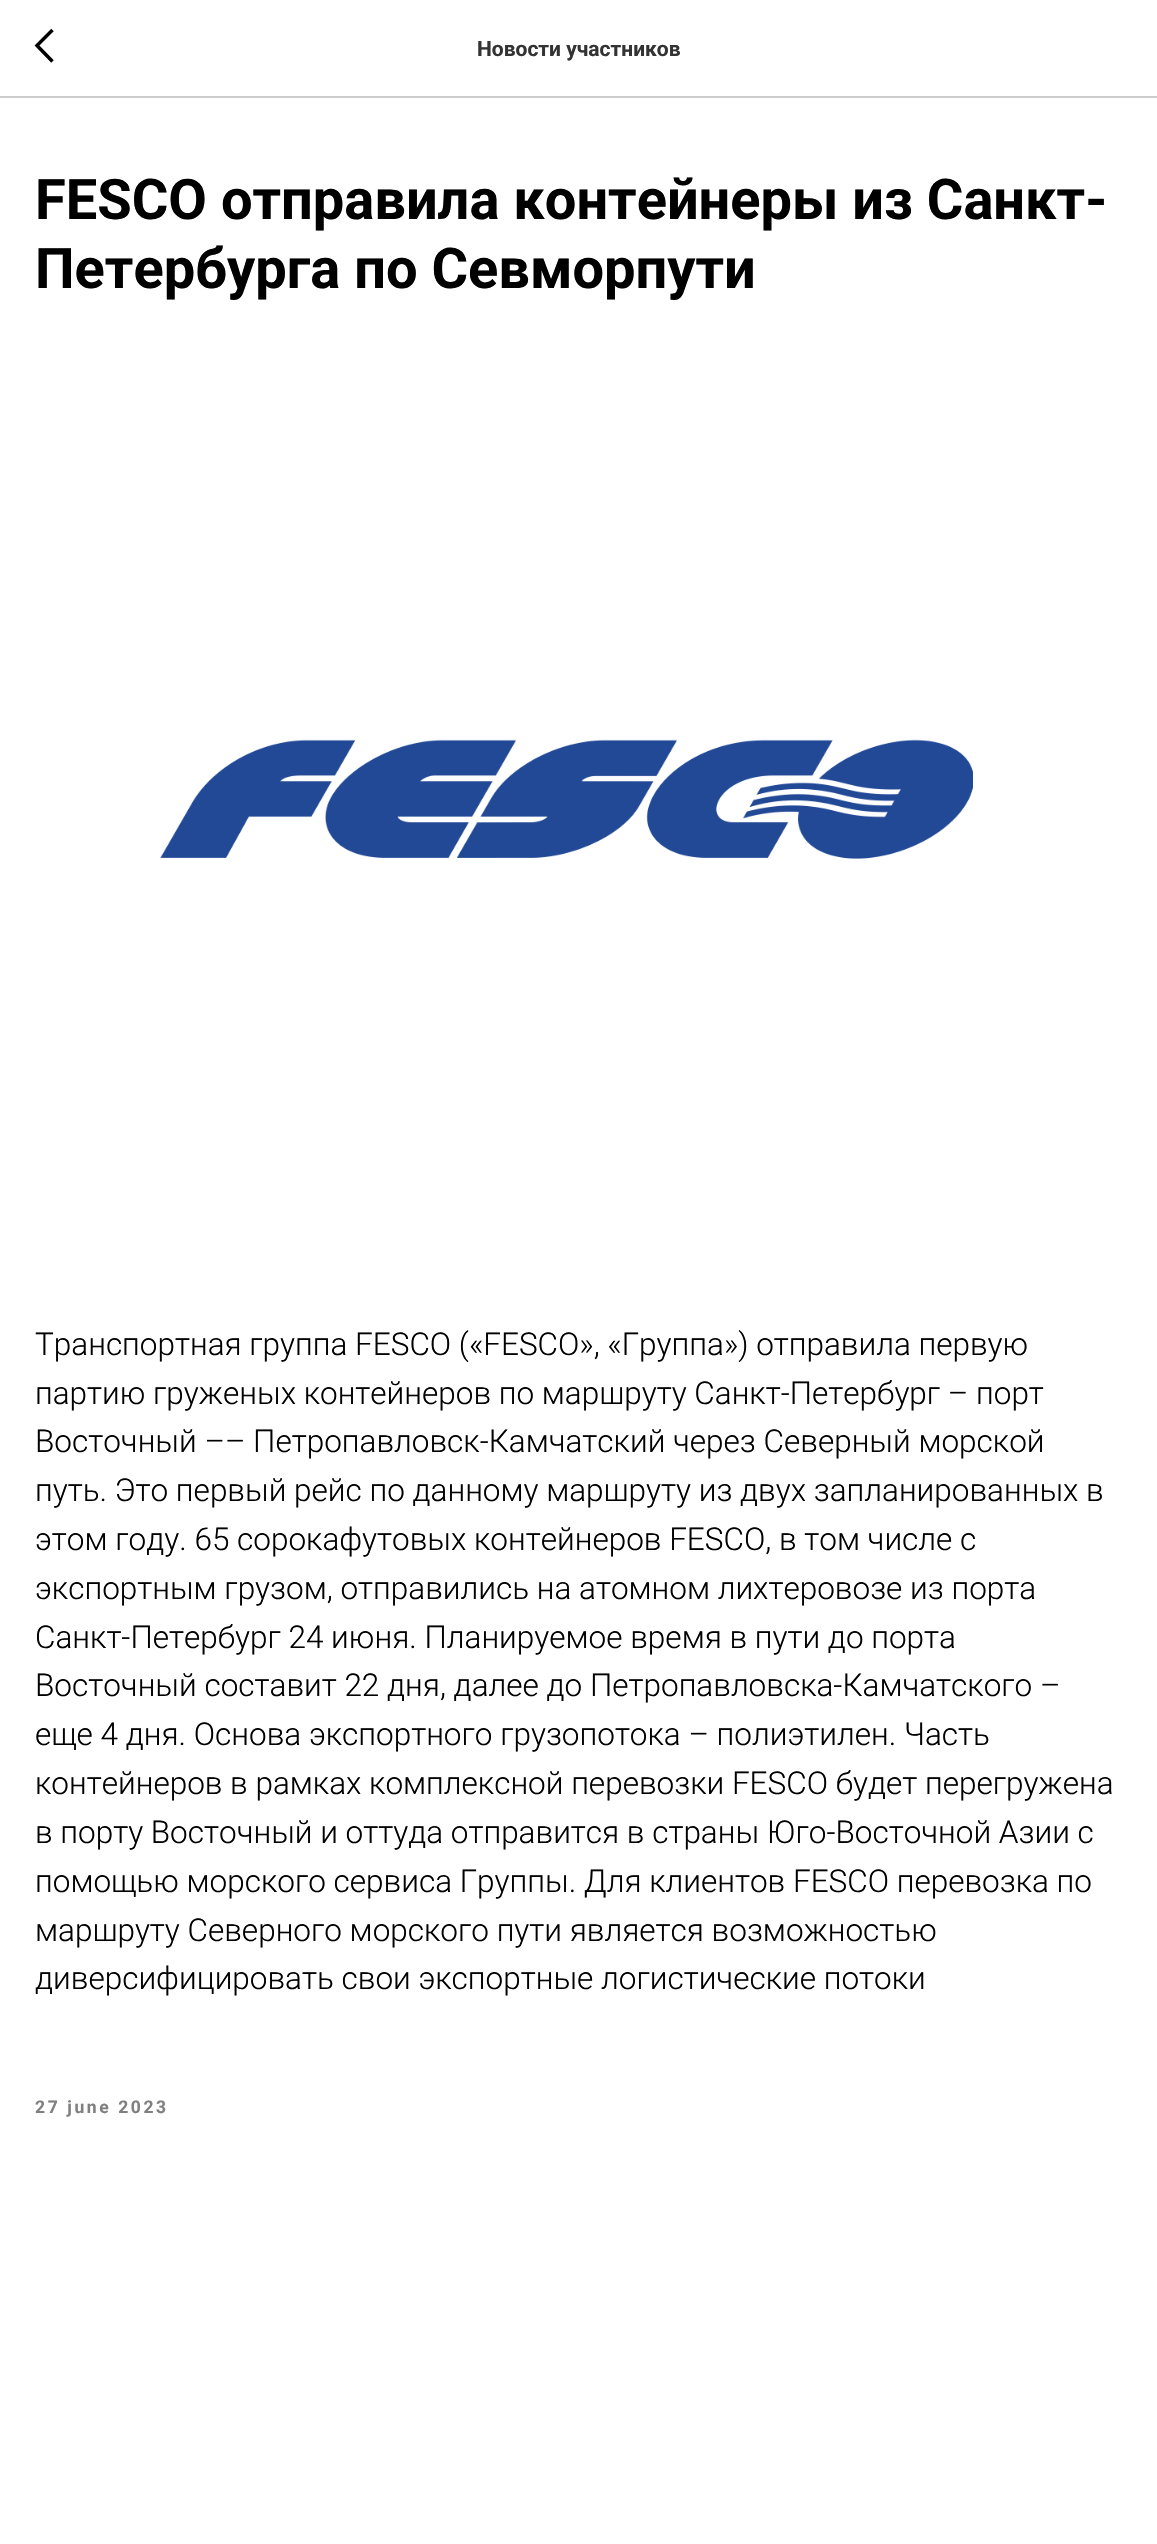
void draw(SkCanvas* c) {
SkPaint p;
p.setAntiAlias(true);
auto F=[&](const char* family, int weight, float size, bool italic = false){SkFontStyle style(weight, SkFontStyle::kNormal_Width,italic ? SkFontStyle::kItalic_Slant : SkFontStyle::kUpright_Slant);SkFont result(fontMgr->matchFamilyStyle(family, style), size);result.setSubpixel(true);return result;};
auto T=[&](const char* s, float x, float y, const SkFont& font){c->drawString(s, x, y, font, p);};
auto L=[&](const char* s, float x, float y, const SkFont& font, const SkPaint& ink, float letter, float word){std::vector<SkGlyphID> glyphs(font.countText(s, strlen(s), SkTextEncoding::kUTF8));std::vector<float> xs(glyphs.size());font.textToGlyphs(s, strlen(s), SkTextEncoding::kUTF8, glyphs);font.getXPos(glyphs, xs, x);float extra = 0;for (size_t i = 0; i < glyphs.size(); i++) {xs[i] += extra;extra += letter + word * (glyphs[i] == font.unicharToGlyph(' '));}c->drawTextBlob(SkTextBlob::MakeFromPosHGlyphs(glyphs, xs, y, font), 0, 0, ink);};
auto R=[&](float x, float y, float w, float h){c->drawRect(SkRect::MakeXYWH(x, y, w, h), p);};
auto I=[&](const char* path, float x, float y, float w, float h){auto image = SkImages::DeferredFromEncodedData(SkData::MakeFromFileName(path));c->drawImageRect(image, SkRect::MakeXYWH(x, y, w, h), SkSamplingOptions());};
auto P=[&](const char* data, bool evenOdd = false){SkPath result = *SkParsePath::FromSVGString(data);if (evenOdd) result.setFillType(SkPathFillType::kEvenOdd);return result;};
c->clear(0xffffffff);
p.setColor(0xffcccccc);
R(0,96,1157,2);
p.setStroke(true);
p.setStrokeWidth(3.5);
p.setColor(0xff000000);
c->drawPath(P("M52.5 61.5l-15.5-16l15.5-15.5"),p);
auto f1 = F("Roboto",700,21);
p.setStroke(false);
p.setColor(0xff333333);
T("Новости участников",477,56,f1);
auto f2 = F("Roboto",700,56);
p.setColor(0xff000000);
T("FESCO отправила контейнеры из Санкт-",35,219,f2);
T("Петербурга по Севморпути",35,288,f2);
I("1.png",160,739,813,120);
auto f3 = F("Roboto",300,31.5);
T("Транспортная группа FESCO («FESCO», «Группа») отправила первую",35,1355,f3);
T("партию груженых контейнеров по маршруту Санкт-Петербург – порт",35,1404,f3);
T("Восточный –– Петропавловск-Камчатский через Северный морской",35,1452,f3);
T("путь. Это первый рейс по данному маршруту из двух запланированных в",35,1501,f3);
T("этом году. 65 сорокафутовых контейнеров FESCO, в том числе с",35,1550,f3);
T("экспортным грузом, отправились на атомном лихтеровозе из порта",35,1599,f3);
T("Санкт-Петербург 24 июня. Планируемое время в пути до порта",35,1648,f3);
T("Восточный составит 22 дня, далее до Петропавловска-Камчатского –",35,1696,f3);
T("еще 4 дня. Основа экспортного грузопотока – полиэтилен. Часть",35,1745,f3);
T("контейнеров в рамках комплексной перевозки FESCO будет перегружена",35,1794,f3);
T("в порту Восточный и оттуда отправится в страны Юго-Восточной Азии с",35,1843,f3);
T("помощью морского сервиса Группы. Для клиентов FESCO перевозка по",35,1892,f3);
T("маршруту Северного морского пути является возможностью",35,1941,f3);
T("диверсифицировать свои экспортные логистические потоки",35,1989,f3);
auto f4 = F("Roboto",700,17.5);
p.setColor(0xff808080);
L("27 june 2023",35,2113,f4,p,2.6,0);
}
